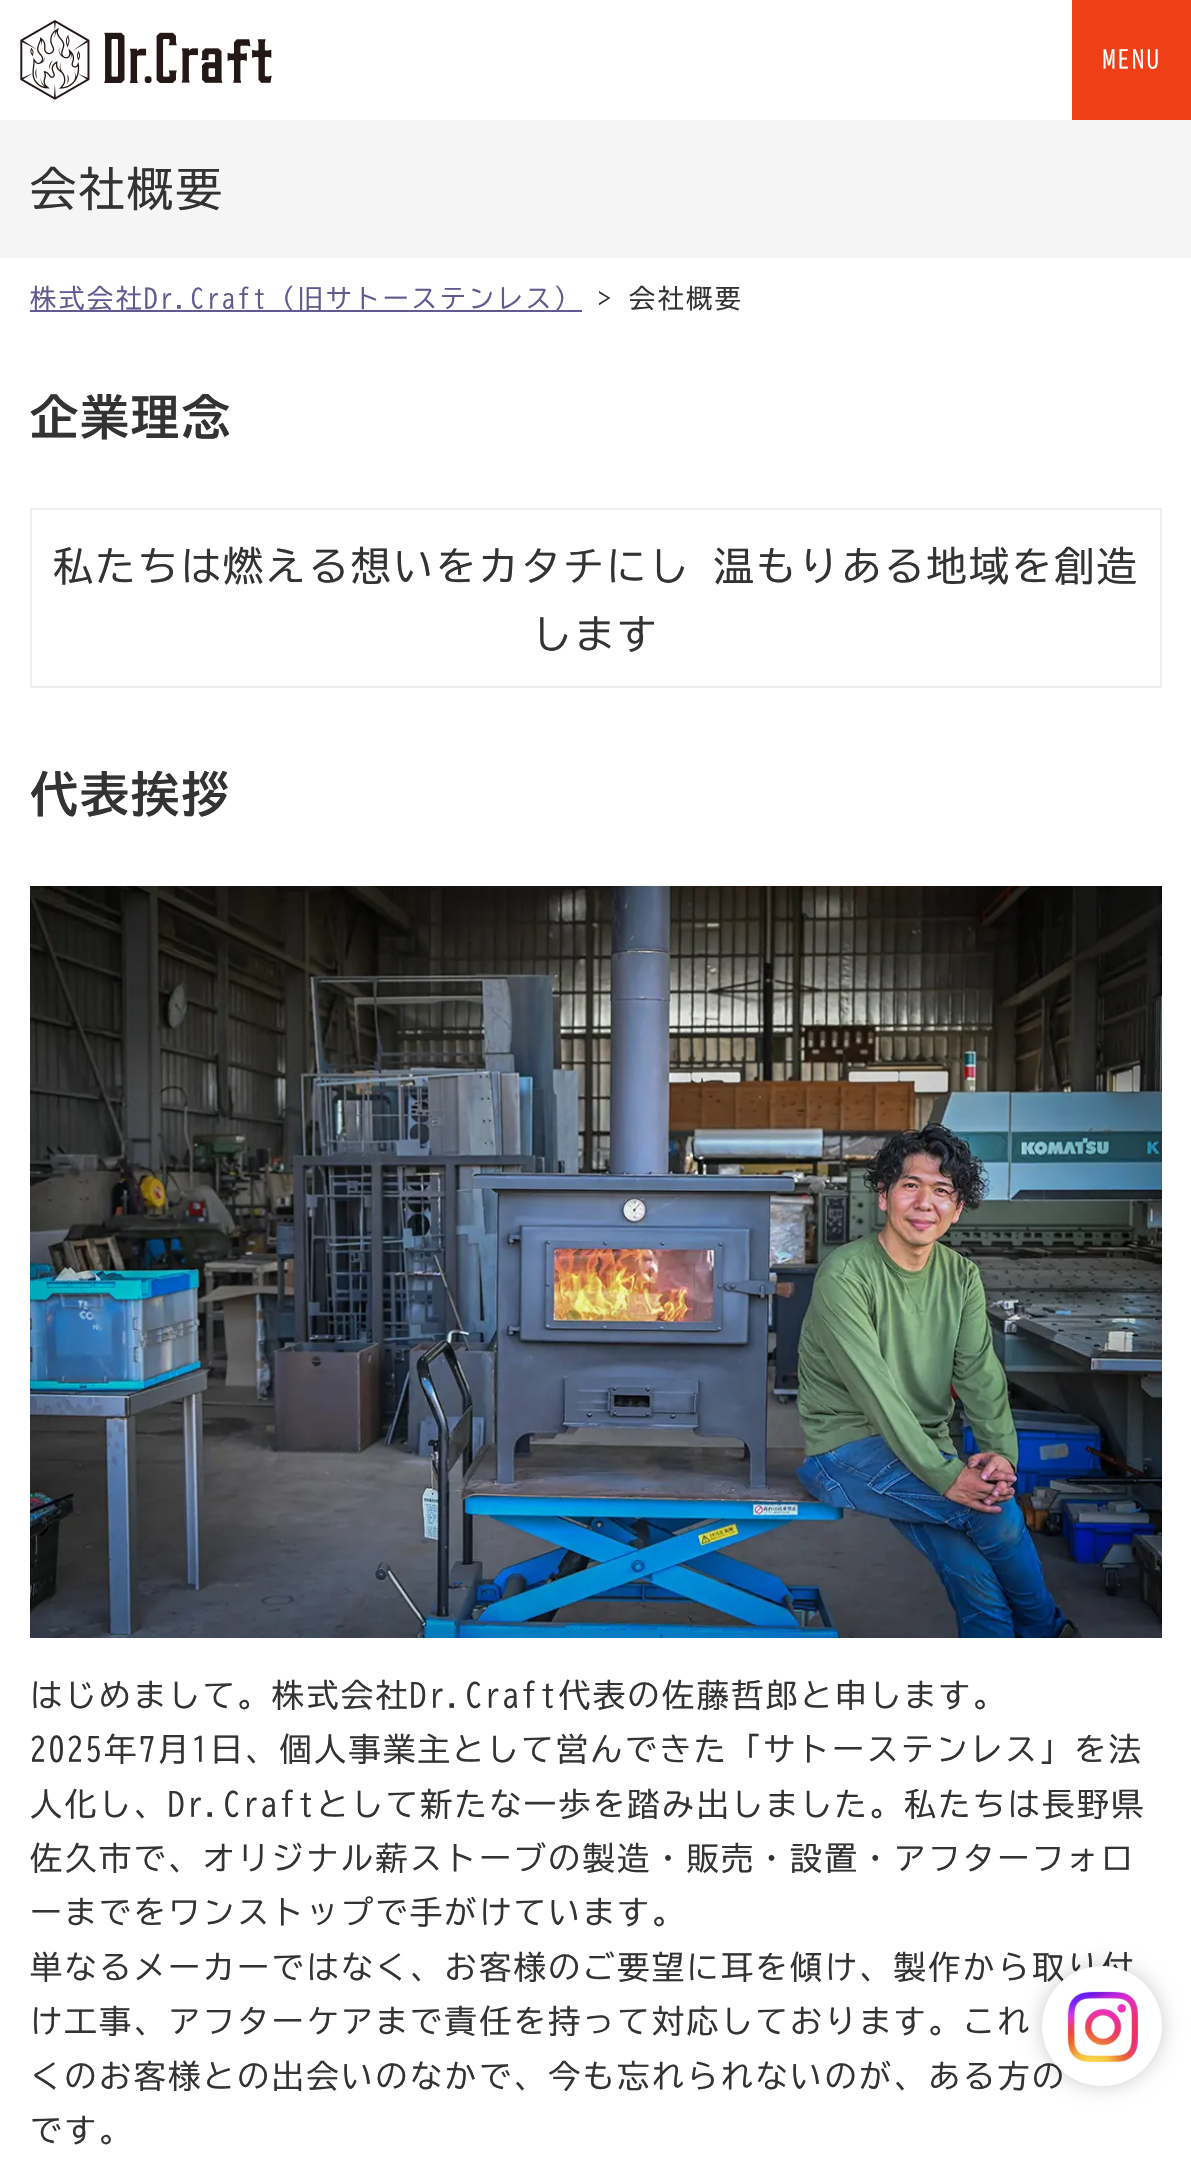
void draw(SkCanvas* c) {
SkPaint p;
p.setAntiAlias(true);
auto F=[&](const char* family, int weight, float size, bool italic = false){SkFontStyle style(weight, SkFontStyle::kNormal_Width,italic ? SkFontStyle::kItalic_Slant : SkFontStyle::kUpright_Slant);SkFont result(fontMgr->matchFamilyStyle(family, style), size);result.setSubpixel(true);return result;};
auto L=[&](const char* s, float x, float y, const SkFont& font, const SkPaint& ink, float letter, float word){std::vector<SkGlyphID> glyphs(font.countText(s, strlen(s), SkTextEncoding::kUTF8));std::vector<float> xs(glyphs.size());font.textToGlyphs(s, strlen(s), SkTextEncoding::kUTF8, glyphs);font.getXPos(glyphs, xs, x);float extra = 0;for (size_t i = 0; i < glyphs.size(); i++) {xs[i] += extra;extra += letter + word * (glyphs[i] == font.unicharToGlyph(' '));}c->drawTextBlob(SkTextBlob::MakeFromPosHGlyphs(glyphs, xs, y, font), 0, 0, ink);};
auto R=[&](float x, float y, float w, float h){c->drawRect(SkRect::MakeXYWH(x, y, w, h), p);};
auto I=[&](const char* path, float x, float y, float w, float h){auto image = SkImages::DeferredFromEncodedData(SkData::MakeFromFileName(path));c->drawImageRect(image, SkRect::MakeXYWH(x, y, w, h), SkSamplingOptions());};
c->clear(0xffffffff);
I("1.png",20,20,252,80);
p.setColor(0xffef3f16);
R(1072,0,119,120);
auto f1 = F("BIZ UDGothic",400,24);
p.setColor(0xffffffff);
L("MENU",1103,68,f1,p,2.55,0);
p.setColor(0xfff5f5f5);
R(0,120,1191,138);
auto f2 = F("BIZ UDGothic",400,46);
p.setColor(0xff333333);
L("会社概要",30,206,f2,p,2.55,0);
p.setColor(0xff605a90);
R(30,310,552,2);
auto f3 = F("BIZ UDGothic",400,26);
L("株式会社Dr.Craft（旧サトーステンレス）",30,308,f3,p,2.55,0);
p.setColor(0xff333333);
L("> 会社概要",598,308,f3,p,2.55,0);
auto f4 = F("BIZ UDGothic",700,48);
L("企業理念",30,435,f4,p,2.55,0);
p.setStroke(true);
p.setStrokeWidth(2);
p.setColor(0xffeeeeee);
c->drawRect(SkRect::MakeXYWH(31,509,1130,178),p);
auto f5 = F("BIZ UDGothic",400,40);
p.setStroke(false);
p.setColor(0xff333333);
L("私たちは燃える想いをカタチにし 温もりある地域を創造",53,581,f5,p,2.55,0);
L("します",532,649,f5,p,2.55,0);
L("代表挨拶",30,812,f4,p,2.55,0);
I("2.png",30,886,1132,752);
auto f6 = F("BIZ UDGothic",400,32);
L("はじめまして。株式会社Dr.Craft代表の佐藤哲郎と申します。",30,1707,f6,p,2.55,0);
L("2025年7月1日、個人事業主として営んできた「サトーステンレス」を法",30,1761,f6,p,2.55,0);
L("人化し、Dr.Craftとして新たな一歩を踏み出しました。私たちは長野県",30,1816,f6,p,2.55,0);
L("佐久市で、オリジナル薪ストーブの製造・販売・設置・アフターフォロ",30,1870,f6,p,2.55,0);
L("ーまでをワンストップで手がけています。",30,1924,f6,p,2.55,0);
L("単なるメーカーではなく、お客様のご要望に耳を傾け、製作から取り付",30,1979,f6,p,2.55,0);
L("け工事、アフターケアまで責任を持って対応しております。これ",30,2033,f6,p,2.55,0);
L("くのお客様との出会いのなかで、今も忘れられないのが、ある方の",30,2088,f6,p,2.55,0);
L("です。",30,2142,f6,p,2.55,0);
p.setColor(0x33000000);
p.setMaskFilter(SkMaskFilter::MakeBlur(kNormal_SkBlurStyle, 10));
c->drawRoundRect(SkRect::MakeXYWH(1042,1966,120,120),60,60,p);
p.setMaskFilter(nullptr);
p.setColor(0xffffffff);
c->drawCircle(1102,2026,60,p);
I("3.png",1067,1991,71,71);
}
